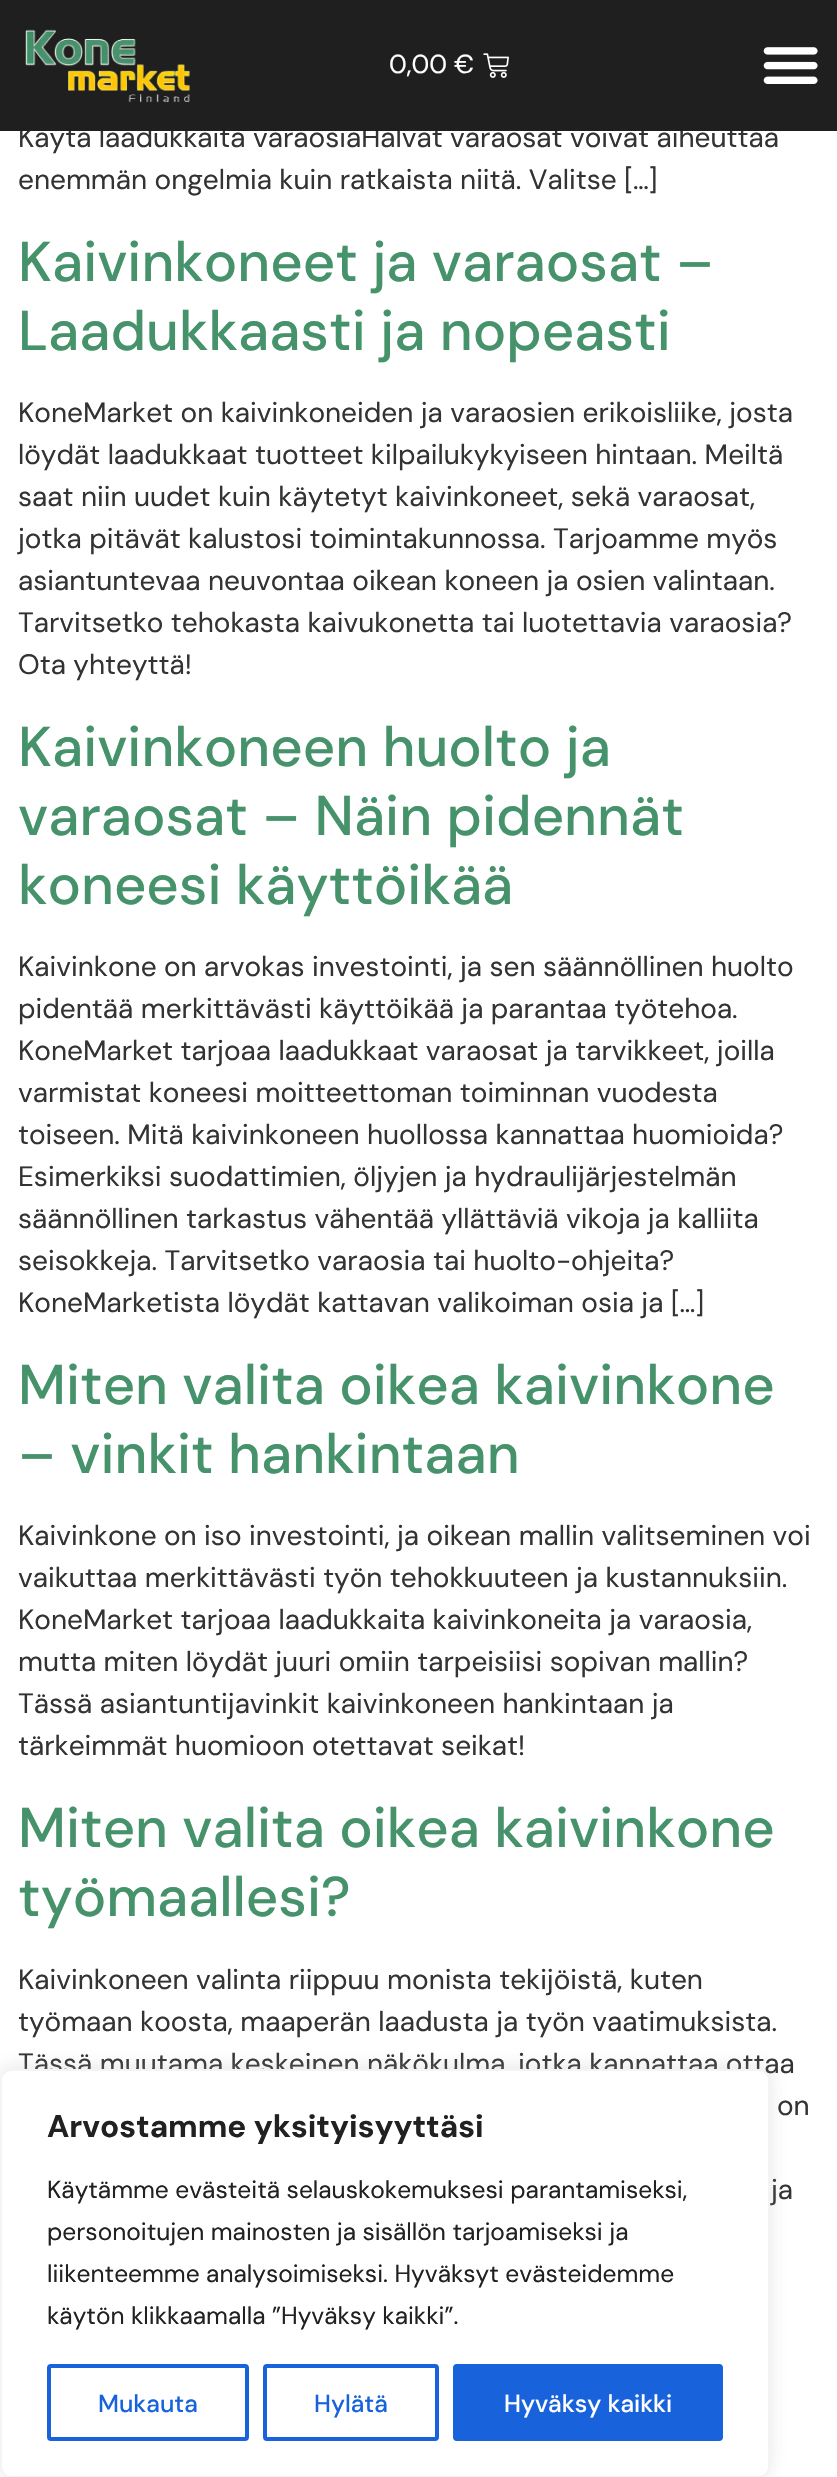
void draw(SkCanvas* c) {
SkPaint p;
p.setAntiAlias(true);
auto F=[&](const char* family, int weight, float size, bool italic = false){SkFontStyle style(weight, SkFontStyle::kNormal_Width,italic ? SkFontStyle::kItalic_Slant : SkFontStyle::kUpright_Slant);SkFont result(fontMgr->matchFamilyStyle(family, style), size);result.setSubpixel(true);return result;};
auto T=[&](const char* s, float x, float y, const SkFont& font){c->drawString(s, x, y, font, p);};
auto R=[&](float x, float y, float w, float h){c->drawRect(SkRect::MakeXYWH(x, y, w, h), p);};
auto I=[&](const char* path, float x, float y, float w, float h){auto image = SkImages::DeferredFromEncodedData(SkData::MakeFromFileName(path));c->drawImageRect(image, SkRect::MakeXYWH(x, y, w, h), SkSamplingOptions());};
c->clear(0xffffffff);
auto f1 = F("DM Sans",400,28);
p.setColor(0xff333333);
T("Käytä laadukkaita varaosiaHalvat varaosat voivat aiheuttaa",18,147,f1);
p.setColor(0xff1f1f1f);
R(0,0,837,131);
I("1.png",25,29,165,74);
auto f2 = F("DM Sans",400,26);
p.setColor(0xffffffff);
T("0,00 €",389,73,f2);
I("2.png",483,53,26,25);
I("3.png",763,47,55,37);
p.setColor(0xff333333);
T("enemmän ongelmia kuin ratkaista niitä. Valitse […]",18,189,f1);
auto f3 = F("DM Sans",500,56);
p.setColor(0xff45926b);
T("Kaivinkoneet ja varaosat –",18,281,f3);
T("Laadukkaasti ja nopeasti",18,350,f3);
p.setColor(0xff333333);
T("KoneMarket on kaivinkoneiden ja varaosien erikoisliike, josta",18,422,f1);
T("löydät laadukkaat tuotteet kilpailukykyiseen hintaan. Meiltä",18,464,f1);
T("saat niin uudet kuin käytetyt kaivinkoneet, sekä varaosat,",18,506,f1);
T("jotka pitävät kalustosi toimintakunnossa. Tarjoamme myös",18,548,f1);
T("asiantuntevaa neuvontaa oikean koneen ja osien valintaan.",18,590,f1);
T("Tarvitsetko tehokasta kaivukonetta tai luotettavia varaosia?",18,632,f1);
T("Ota yhteyttä!",18,674,f1);
p.setColor(0xff45926b);
T("Kaivinkoneen huolto ja",18,766,f3);
T("varaosat – Näin pidennät",18,835,f3);
T("koneesi käyttöikää",18,904,f3);
p.setColor(0xff333333);
T("Kaivinkone on arvokas investointi, ja sen säännöllinen huolto",18,976,f1);
T("pidentää merkittävästi käyttöikää ja parantaa työtehoa.",18,1018,f1);
T("KoneMarket tarjoaa laadukkaat varaosat ja tarvikkeet, joilla",18,1060,f1);
T("varmistat koneesi moitteettoman toiminnan vuodesta",18,1102,f1);
T("toiseen. Mitä kaivinkoneen huollossa kannattaa huomioida?",18,1144,f1);
T("Esimerkiksi suodattimien, öljyjen ja hydraulijärjestelmän",18,1186,f1);
T("säännöllinen tarkastus vähentää yllättäviä vikoja ja kalliita",18,1228,f1);
T("seisokkeja. Tarvitsetko varaosia tai huolto-ohjeita?",18,1270,f1);
T("KoneMarketista löydät kattavan valikoiman osia ja […]",18,1312,f1);
p.setColor(0xff45926b);
T("Miten valita oikea kaivinkone",18,1404,f3);
T("– vinkit hankintaan",18,1473,f3);
p.setColor(0xff333333);
T("Kaivinkone on iso investointi, ja oikean mallin valitseminen voi",18,1545,f1);
T("vaikuttaa merkittävästi työn tehokkuuteen ja kustannuksiin.",18,1587,f1);
T("KoneMarket tarjoaa laadukkaita kaivinkoneita ja varaosia,",18,1629,f1);
T("mutta miten löydät juuri omiin tarpeisiisi sopivan mallin?",18,1671,f1);
T("Tässä asiantuntijavinkit kaivinkoneen hankintaan ja",18,1713,f1);
T("tärkeimmät huomioon otettavat seikat!",18,1755,f1);
p.setColor(0xff45926b);
T("Miten valita oikea kaivinkone",18,1847,f3);
T("työmaallesi?",18,1916,f3);
p.setColor(0xff333333);
T("Kaivinkoneen valinta riippuu monista tekijöistä, kuten",18,1989,f1);
T("työmaan koosta, maaperän laadusta ja työn vaatimuksista.",18,2031,f1);
T("Tässä muutama keskeinen näkökulma, jotka kannattaa ottaa",18,2073,f1);
T("on",777,2115,f1);
T("ja",771,2199,f1);
p.setColor(0x4dacabab);
p.setMaskFilter(SkMaskFilter::MakeBlur(kNormal_SkBlurStyle, 9));
c->drawRoundRect(SkRect::MakeXYWH(0,2067,770,409),11,11,p);
p.setMaskFilter(nullptr);
p.setColor(0xffffffff);
c->drawRoundRect(SkRect::MakeXYWH(1,2070,768,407),10,10,p);
p.setStroke(true);
p.setStrokeWidth(2);
p.setColor(0xfff4f4f4);
c->drawRoundRect(SkRect::MakeXYWH(1,2070,768,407),10,10,p);
auto f4 = F("DM Sans",700,31.5);
p.setStroke(false);
p.setColor(0xff212121);
T("Arvostamme yksityisyyttäsi",47,2137,f4);
auto f5 = F("DM Sans",400,24.5);
T("Käytämme evästeitä selauskokemuksesi parantamiseksi,",47,2198,f5);
T("personoitujen mainosten ja sisällön tarjoamiseksi ja",47,2240,f5);
T("liikenteemme analysoimiseksi. Hyväksyt evästeidemme",47,2282,f5);
T("käytön klikkaamalla ”Hyväksy kaikki”.",47,2324,f5);
p.setStroke(true);
p.setStrokeWidth(4);
p.setColor(0xff1863dc);
c->drawRoundRect(SkRect::MakeXYWH(49,2366,198,73),2,2,p);
auto f6 = F("DM Sans",500,24.5);
p.setStroke(false);
T("Mukauta",98,2412,f6);
p.setStroke(true);
c->drawRoundRect(SkRect::MakeXYWH(265,2366,172,73),2,2,p);
p.setStroke(false);
T("Hylätä",314,2412,f6);
c->drawRoundRect(SkRect::MakeXYWH(455,2366,266,73),2,2,p);
p.setStroke(true);
c->drawRoundRect(SkRect::MakeXYWH(455,2366,266,73),2,2,p);
p.setStroke(false);
p.setColor(0xffffffff);
T("Hyväksy kaikki",504,2412,f6);
}
